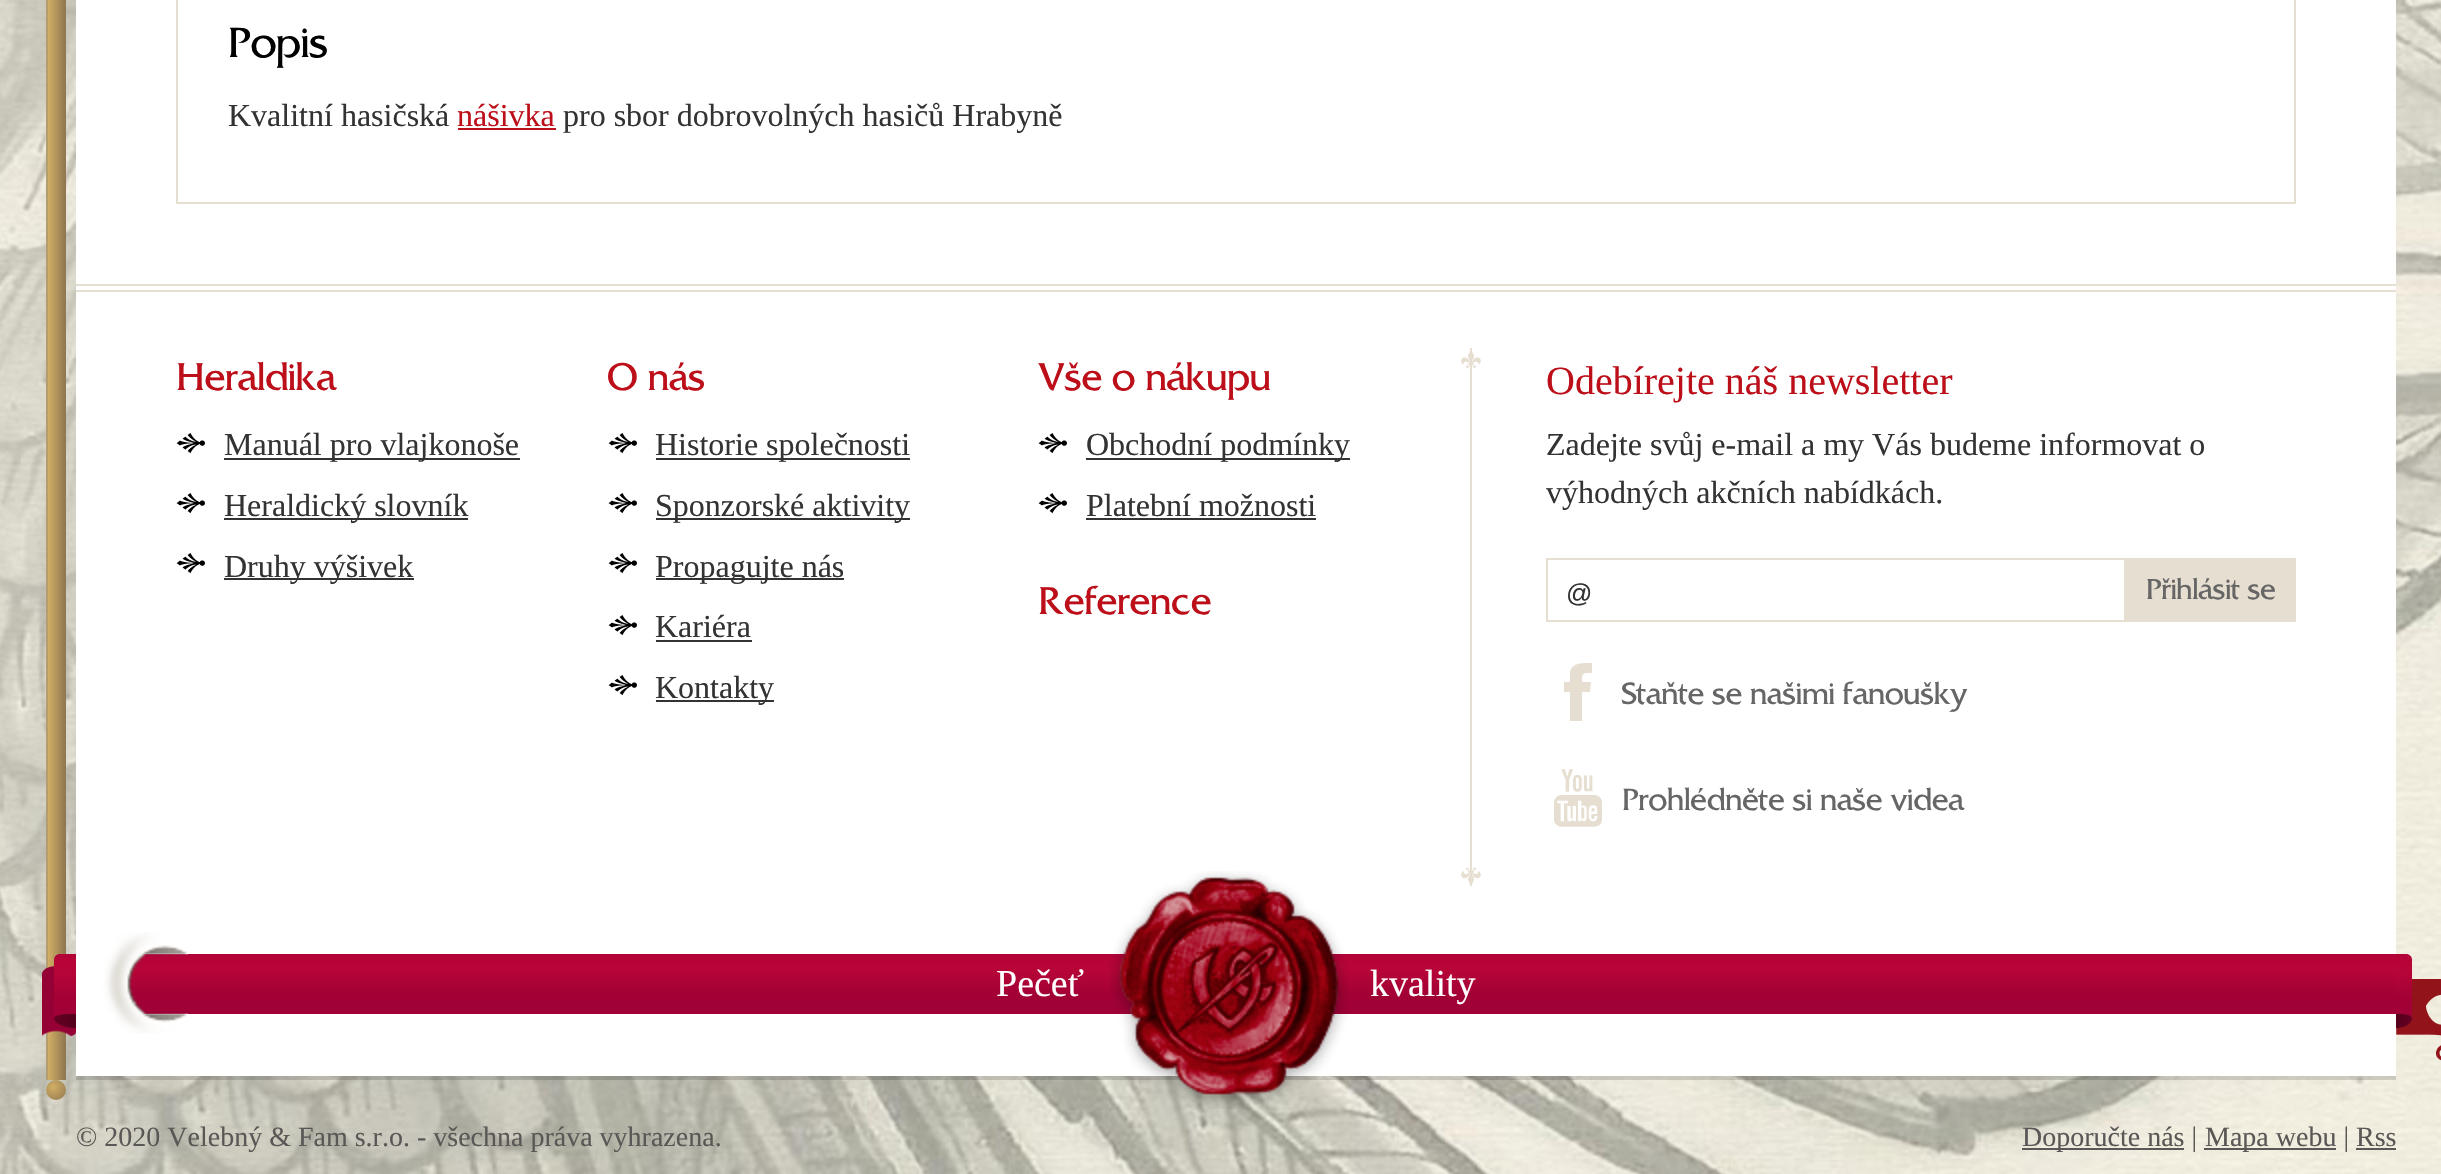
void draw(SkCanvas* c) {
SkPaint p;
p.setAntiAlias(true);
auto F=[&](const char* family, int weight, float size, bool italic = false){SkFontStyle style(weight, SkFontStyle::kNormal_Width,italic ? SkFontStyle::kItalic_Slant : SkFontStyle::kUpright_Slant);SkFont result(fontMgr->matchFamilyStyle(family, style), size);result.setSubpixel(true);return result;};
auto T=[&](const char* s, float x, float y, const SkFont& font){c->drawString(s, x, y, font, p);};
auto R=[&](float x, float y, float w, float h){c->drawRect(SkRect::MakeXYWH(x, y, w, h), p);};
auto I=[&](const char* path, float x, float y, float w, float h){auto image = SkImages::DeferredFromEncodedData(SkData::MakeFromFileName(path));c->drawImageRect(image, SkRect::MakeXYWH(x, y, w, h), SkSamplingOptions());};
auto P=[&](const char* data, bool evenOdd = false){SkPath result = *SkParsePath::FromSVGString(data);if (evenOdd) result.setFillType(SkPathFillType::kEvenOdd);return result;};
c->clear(0xffffffff);
I("1.png",0,0,2441,1174);
{
const SkColor colors[] = {0xffd2af65,0xff8e754f};
const float stops[] = {0,1};
const SkPoint ends[] = {{48,-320}, {66,-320}};
p.setShader(SkGradientShader::MakeLinear(ends, colors, stops, 2, SkTileMode::kClamp));
p.setAlpha(255);
}
R(48,0,18,284);
p.setShader(nullptr);
p.setColor(0xffb49e70);
R(46,0,2,1080);
p.setColor(0xffffffff);
R(76,0,2320,284);
p.setStroke(true);
p.setStrokeWidth(2);
p.setColor(0xffe6ded0);
c->drawRect(SkRect::MakeXYWH(177,-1,2118,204),p);
auto f1 = F("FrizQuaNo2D",400,44);
p.setStroke(false);
p.setColor(0xff000000);
T("Popis",228,57,f1);
auto f2 = F("Liberation Serif",400,32);
p.setColor(0xff333333);
T("Kvalitní hasičská",228,126,f2);
p.setColor(0xffbd0f1a);
T("nášivka",457,126,f2);
R(458,128,98,2);
p.setColor(0xff333333);
T("pro sbor dobrovolných hasičů Hrabyně",563,126,f2);
{
const SkColor colors[] = {0xffd2af65,0xff8e754f};
const float stops[] = {0,1};
const SkPoint ends[] = {{48,585}, {66,585}};
p.setShader(SkGradientShader::MakeLinear(ends, colors, stops, 2, SkTileMode::kClamp));
p.setAlpha(255);
}
R(48,284,18,602);
p.setShader(nullptr);
p.setColor(0xffffffff);
R(76,286,2320,790);
p.setColor(0xffe6ded0);
R(76,284,2320,2);
R(76,290,2320,2);
auto f3 = F("FrizQuaNo2D",400,40);
p.setColor(0xffbd0f1a);
T("Heraldika",176,390,f3);
I("2.png",176,433,29,21);
p.setColor(0xff333333);
R(224,458,296,2);
T("Manuál pro vlajkonoše",224,455,f2);
I("2.png",176,493,29,21);
R(224,518,244,2);
T("Heraldický slovník",224,516,f2);
I("2.png",176,553,29,21);
R(224,578,190,2);
T("Druhy výšivek",224,577,f2);
p.setColor(0xffbd0f1a);
T("O nás",607,390,f3);
I("2.png",608,433,29,21);
p.setColor(0xff333333);
R(656,458,254,2);
T("Historie společnosti",655,455,f2);
I("2.png",608,493,29,21);
R(656,518,254,2);
T("Sponzorské aktivity",655,516,f2);
I("2.png",608,553,29,21);
R(656,578,188,2);
T("Propagujte nás",655,577,f2);
I("2.png",608,615,29,21);
T("Kariéra",655,637,f2);
R(656,640,96,2);
I("2.png",608,675,29,21);
R(656,700,118,2);
T("Kontakty",655,698,f2);
p.setColor(0xffbd0f1a);
T("Vše o nákupu",1038,390,f3);
I("2.png",1038,433,29,21);
p.setColor(0xff333333);
R(1086,458,264,2);
T("Obchodní podmínky",1086,455,f2);
I("2.png",1038,493,29,21);
T("Platební možnosti",1086,516,f2);
R(1086,518,230,2);
p.setColor(0xffbd0f1a);
T("Reference",1038,614,f3);
p.setColor(0xffe6ded0);
R(1470,348,2,538);
I("3.png",1461,351,20,17);
I("4.png",1461,867,20,17);
auto f4 = F("Liberation Serif",400,40);
p.setColor(0xffbd0f1a);
T("Odebírejte náš newsletter",1546,394,f4);
p.setColor(0xff333333);
T("Zadejte svůj e-mail a my Vás budeme informovat o",1546,455,f2);
T("výhodných akčních nabídkách.",1546,503,f2);
p.setStroke(true);
p.setColor(0xffe6ded0);
c->drawRect(SkRect::MakeXYWH(1547,559,578,62),p);
auto f5 = F("Liberation Sans",400,26);
p.setStroke(false);
p.setColor(0xff333333);
T("@",1566,602,f5);
p.setColor(0xffe6ded0);
R(2126,558,170,64);
auto f6 = F("FrizQuaNo2D",400,30);
p.setColor(0xff666666);
T("Přihlásit se",2146,599,f6);
p.setColor(0xffe6ded0);
c->drawPath(P("M1570 674c0-12 13-11 22-11v10c-10 0-10 0-10 9h9l-1 10h-8v29h-12v-29h-6v-10h6z"),p);
auto f7 = F("FrizQuaNo2D",400,32);
p.setColor(0xff666666);
T("Staňte se našimi fanoušky",1622,704,f7);
I("5.png",1554,769,48,58);
T("Prohlédněte si naše videa",1622,810,f7);
p.setColor(0x26000000);
R(76,1076,2320,4);
{
const SkColor colors[] = {0xffd2af65,0xff8e754f};
const float stops[] = {0,1};
const SkPoint ends[] = {{48,983}, {66,983}};
p.setShader(SkGradientShader::MakeLinear(ends, colors, stops, 2, SkTileMode::kClamp));
p.setAlpha(255);
}
R(48,886,18,194);
{
const SkColor colors[] = {0xffb00337,0xffb60437,0xffb70537,0xffa30136,0xff9f0136};
const float stops[] = {0,.09,.28,.66,1};
const SkPoint ends[] = {{1236,954}, {1236,1014}};
p.setShader(SkGradientShader::MakeLinear(ends, colors, stops, 5, SkTileMode::kClamp));
p.setAlpha(255);
}
R(129,954,2267,60);
I("6.png",102,932,86,102);
I("7.png",1110,871,239,238);
{
const SkColor colors[] = {0x00950035,0xff950035};
const float stops[] = {.26,.28};
p.setShader(SkGradientShader::MakeRadial({56,1056}, 92, colors, stops, 2, SkTileMode::kClamp));
p.setAlpha(255);
}
c->drawPath(P("M56 966h6c8 0 14 4 14 8v58c0 2-3 4-6 4h-28v-62c0-4 6-8 14-8z"),p);
{
const SkColor colors[] = {0xffb00337,0xffb60437,0xffb70537,0xffa30136,0xff9f0136};
const float stops[] = {0,.09,.28,.66,1};
const SkPoint ends[] = {{65,954}, {65,1020}};
p.setShader(SkGradientShader::MakeLinear(ends, colors, stops, 5, SkTileMode::kClamp));
p.setAlpha(255);
}
c->drawPath(P("M60 954h16v66h-22v-60c0-3.5 2.5-6 6-6z"),p);
auto f8 = F("Liberation Serif",400,38);
p.setShader(nullptr);
p.setColor(0xffffffff);
T("Pečeť",996,996,f8);
I("8.png",54,1014,22,14);
T("kvality",1370,996,f8);
I("10.png",2396,979,45,82);
{
const SkColor colors[] = {0xffb00337,0xffb60437,0xffb70537,0xffa30136,0xff9f0136};
const float stops[] = {0,.09,.28,.66,1};
const SkPoint ends[] = {{2404,954}, {2404,1020}};
p.setShader(SkGradientShader::MakeLinear(ends, colors, stops, 5, SkTileMode::kClamp));
p.setAlpha(255);
}
c->drawPath(P("M2396 954h10c3.5 0 6 2.5 6 6v60h-16z"),p);
I("9.png",2396,1014,16,14);
{
const SkColor colors[] = {0xffd2af65,0xff8e754f};
const float stops[] = {0,1};
p.setShader(SkGradientShader::MakeRadial({53,1087}, 19, colors, stops, 2, SkTileMode::kClamp));
p.setAlpha(255);
}
c->drawCircle(56,1090,10,p);
auto f9 = F("Liberation Serif",400,28);
p.setShader(nullptr);
p.setColor(0xff5b5756);
T("© 2020 Velebný & Fam s.r.o. - všechna práva vyhrazena.",76,1146,f9);
R(2022,1148,162,2);
T("Doporučte nás |",2022,1146,f9);
R(2204,1148,132,2);
T("Mapa webu | Rss",2205,1146,f9);
R(2356,1148,40,2);
}
